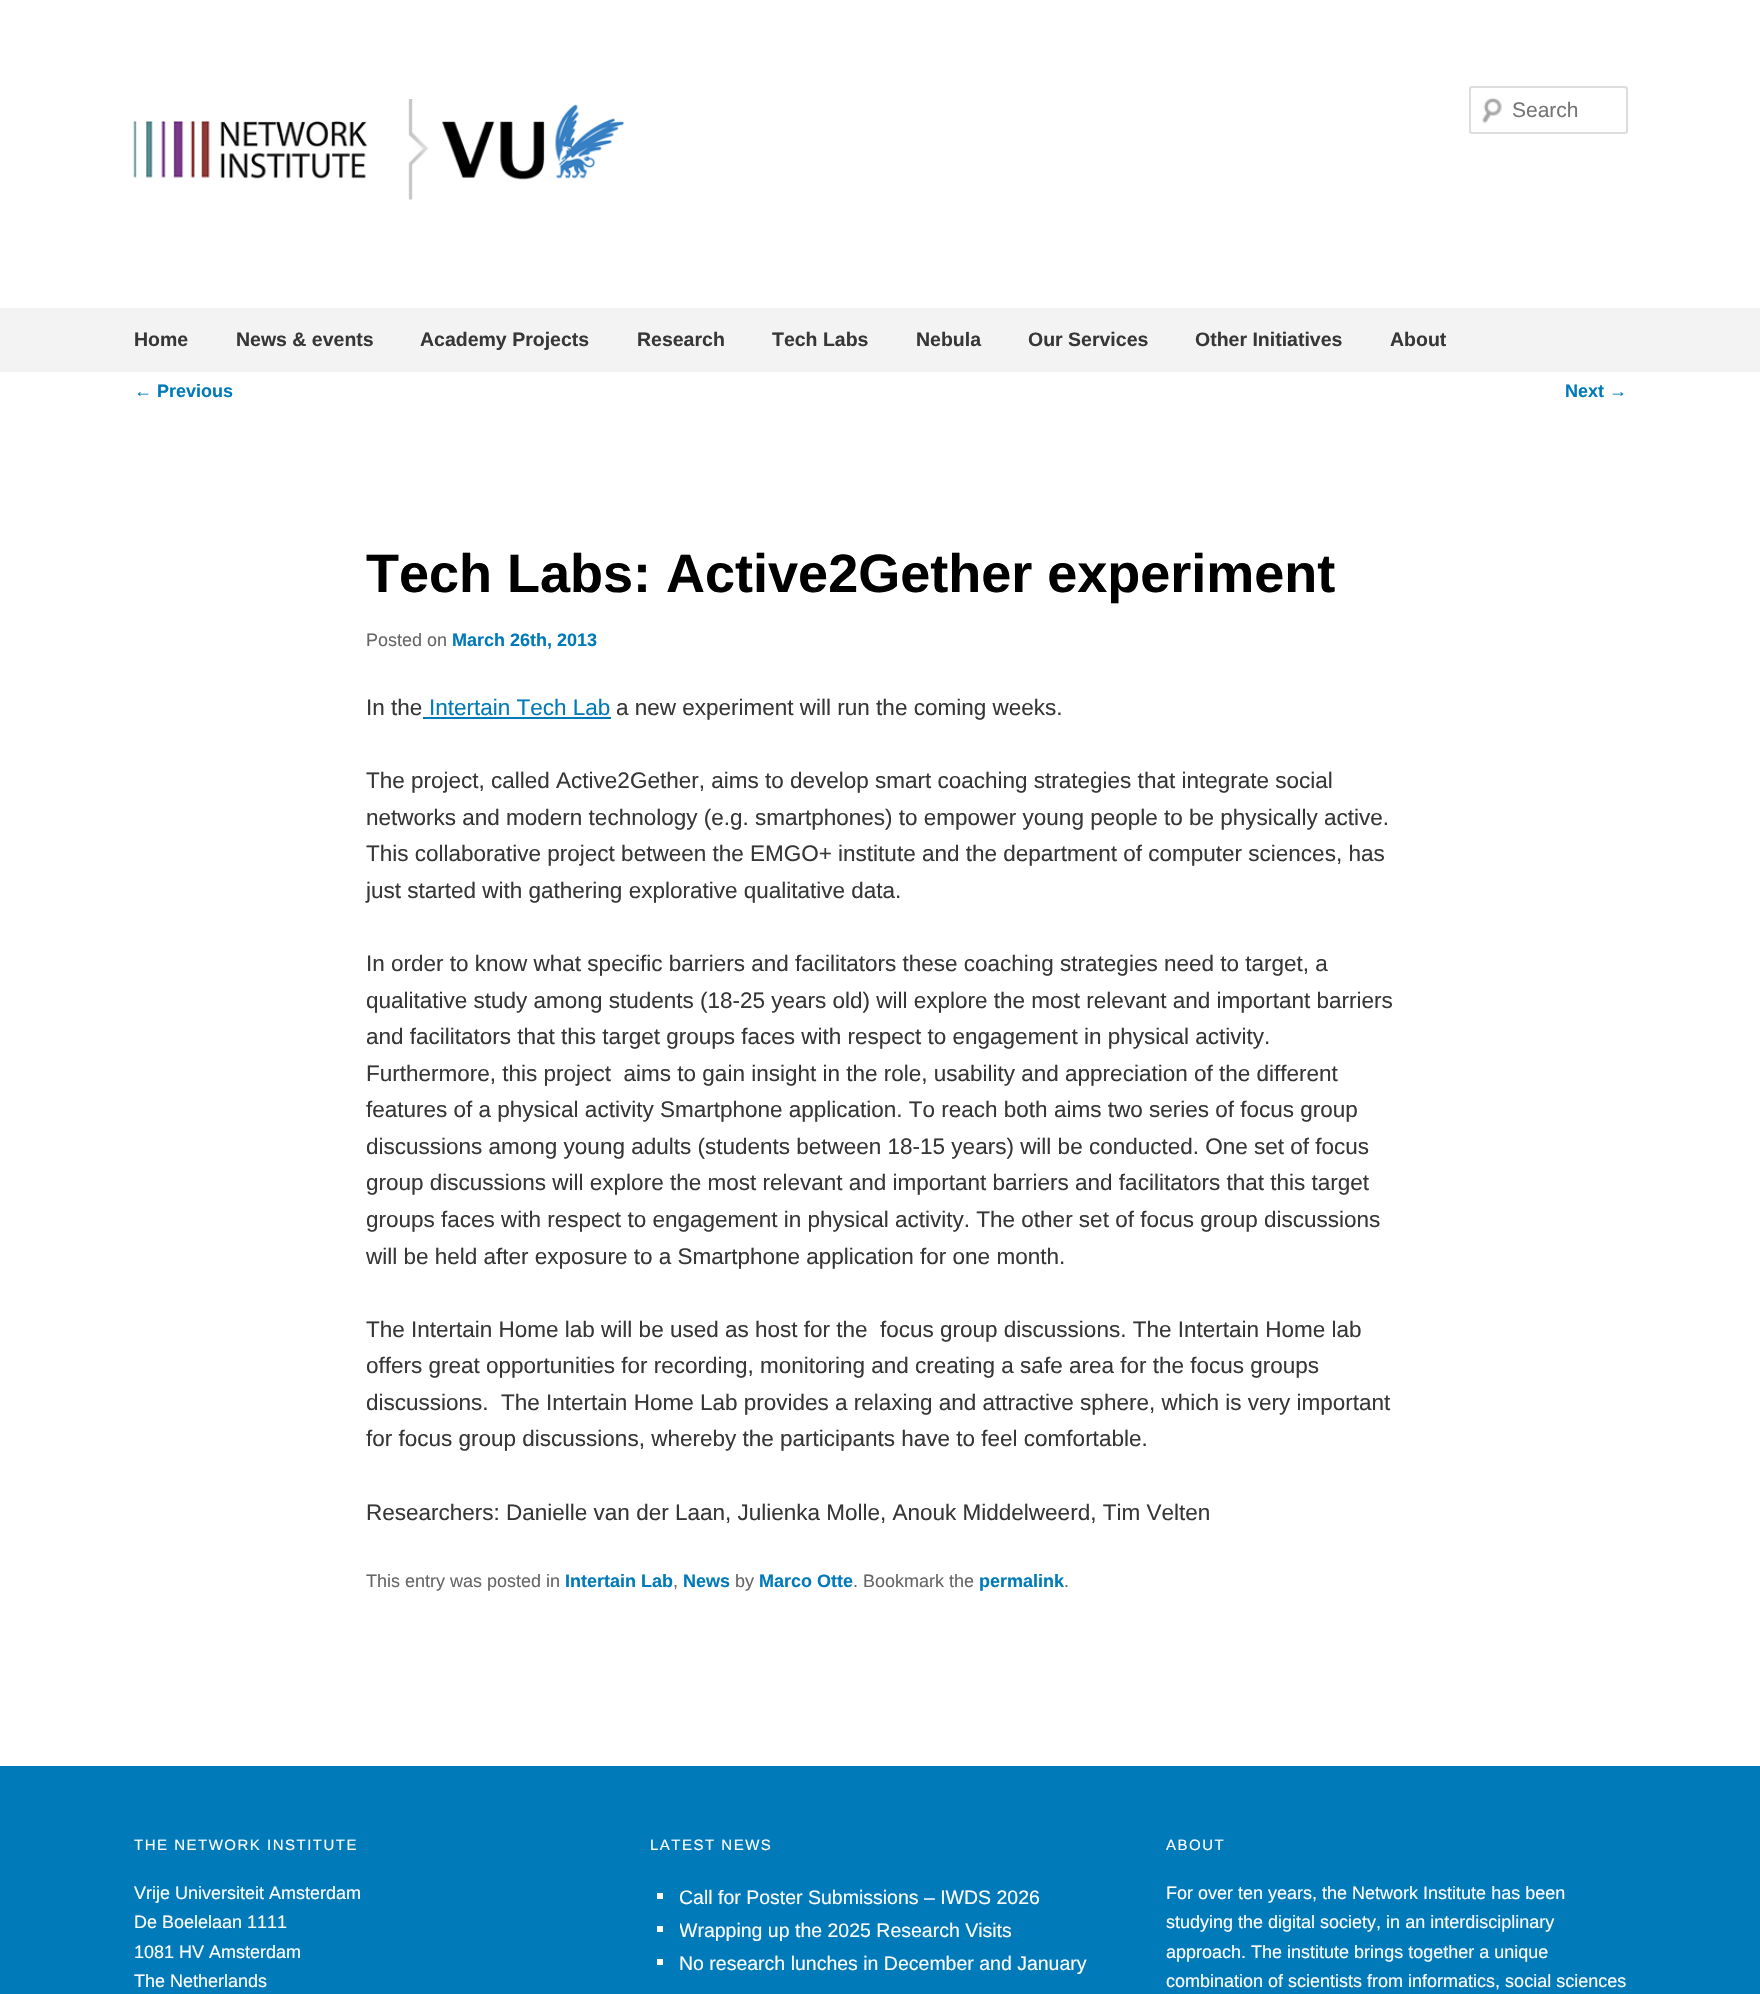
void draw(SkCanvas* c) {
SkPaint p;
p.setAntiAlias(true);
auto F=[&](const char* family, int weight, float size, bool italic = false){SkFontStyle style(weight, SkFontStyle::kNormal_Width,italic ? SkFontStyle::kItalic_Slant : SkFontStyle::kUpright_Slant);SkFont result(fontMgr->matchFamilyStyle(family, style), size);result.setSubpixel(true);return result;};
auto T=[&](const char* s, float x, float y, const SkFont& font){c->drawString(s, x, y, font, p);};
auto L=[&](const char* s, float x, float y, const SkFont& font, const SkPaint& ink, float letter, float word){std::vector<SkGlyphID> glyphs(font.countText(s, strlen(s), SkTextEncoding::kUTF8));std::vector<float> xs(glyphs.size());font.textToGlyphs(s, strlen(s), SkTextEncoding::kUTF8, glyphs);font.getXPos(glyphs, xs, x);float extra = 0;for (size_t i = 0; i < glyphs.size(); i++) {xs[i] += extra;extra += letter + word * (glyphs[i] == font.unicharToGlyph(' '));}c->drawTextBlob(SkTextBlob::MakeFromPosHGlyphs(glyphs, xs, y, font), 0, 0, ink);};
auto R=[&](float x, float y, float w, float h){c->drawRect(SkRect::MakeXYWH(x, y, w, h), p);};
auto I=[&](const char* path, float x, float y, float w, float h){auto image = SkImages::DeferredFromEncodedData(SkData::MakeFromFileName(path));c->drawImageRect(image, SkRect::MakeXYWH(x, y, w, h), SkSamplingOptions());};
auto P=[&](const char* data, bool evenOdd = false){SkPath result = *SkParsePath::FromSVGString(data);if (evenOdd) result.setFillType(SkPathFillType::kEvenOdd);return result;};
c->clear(0xffffffff);
I("1.png",133,99,491,101);
I("2.png",1482,97,20,27);
p.setColor(0xffe6e6e6);
c->drawPath(P("M1472 88h152c1 0 2 1 2 2v-2c0 0-1-1-2-1h-152c-1 0-2 1-2 1v2c0-1 1-2 2-2z"),p);
p.setStroke(true);
p.setStrokeWidth(2);
p.setColor(0xffdddddd);
c->drawRoundRect(SkRect::MakeXYWH(1470,87,157,46),2,2,p);
auto f1 = F("Liberation Sans",400,21);
p.setStroke(false);
p.setColor(0xff757575);
T("Search",1512,117,f1);
p.setColor(0xfff3f3f3);
R(0,308,1760,64);
auto f2 = F("Liberation Sans",700,19.5);
p.setColor(0xff373737);
T("Home",134,346,f2);
T("News & events",236,346,f2);
T("Academy Projects",420,346,f2);
T("Research",637,346,f2);
T("Tech Labs",772,346,f2);
T("Nebula",916,346,f2);
T("Our Services",1028,346,f2);
T("Other Initiatives",1195,346,f2);
T("About",1390,346,f2);
auto f3 = F("Liberation Sans",400,18);
p.setColor(0xff007ab9);
T("←",134,397,f3);
auto f4 = F("Liberation Sans",700,18);
T("Previous",157,397,f4);
T("Next",1565,397,f4);
T("→",1609,397,f3);
auto f5 = F("Liberation Sans",700,54);
p.setColor(0xff000000);
T("Tech Labs: Active2Gether experiment",366,592,f5);
p.setColor(0xff666666);
T("Posted on",366,646,f3);
p.setColor(0xff007ab9);
T("March 26th, 2013",452,646,f4);
auto f6 = F("Liberation Sans",400,22.5);
p.setColor(0xff373737);
T("In the",366,715,f6);
p.setColor(0xff007ab9);
T("Intertain Tech Lab",429,715,f6);
R(423,717,188,2);
p.setColor(0xff373737);
T("a new experiment will run the coming weeks.",616,715,f6);
T("The project, called Active2Gether, aims to develop smart coaching strategies that integrate social",366,788,f6);
T("networks and modern technology (e.g. smartphones) to empower young people to be physically active.",366,825,f6);
T("This collaborative project between the EMGO+ institute and the department of computer sciences, has",366,861,f6);
T("just started with gathering explorative qualitative data.",366,898,f6);
T("In order to know what specific barriers and facilitators these coaching strategies need to target, a",366,971,f6);
T("qualitative study among students (18-25 years old) will explore the most relevant and important barriers",366,1008,f6);
T("and facilitators that this target groups faces with respect to engagement in physical activity.",366,1044,f6);
T("Furthermore, this project  aims to gain insight in the role, usability and appreciation of the different",366,1081,f6);
T("features of a physical activity Smartphone application. To reach both aims two series of focus group",366,1117,f6);
T("discussions among young adults (students between 18-15 years) will be conducted. One set of focus",366,1154,f6);
T("group discussions will explore the most relevant and important barriers and facilitators that this target",366,1190,f6);
T("groups faces with respect to engagement in physical activity. The other set of focus group discussions",366,1227,f6);
T("will be held after exposure to a Smartphone application for one month.",366,1264,f6);
T("The Intertain Home lab will be used as host for the  focus group discussions. The Intertain Home lab",366,1337,f6);
T("offers great opportunities for recording, monitoring and creating a safe area for the focus groups",366,1373,f6);
T("discussions.  The Intertain Home Lab provides a relaxing and attractive sphere, which is very important",366,1410,f6);
T("for focus group discussions, whereby the participants have to feel comfortable.",366,1446,f6);
T("Researchers: Danielle van der Laan, Julienka Molle, Anouk Middelweerd, Tim Velten",366,1520,f6);
p.setColor(0xff666666);
T("This entry was posted in",366,1587,f3);
p.setColor(0xff007ab9);
T("Intertain Lab",565,1587,f4);
p.setColor(0xff666666);
T(",",673,1587,f3);
p.setColor(0xff007ab9);
T("News",683,1587,f4);
p.setColor(0xff666666);
T("by",735,1587,f3);
p.setColor(0xff007ab9);
T("Marco Otte",759,1587,f4);
p.setColor(0xff666666);
T(". Bookmark the",853,1587,f3);
p.setColor(0xff007ab9);
T("permalink",979,1587,f4);
p.setColor(0xff666666);
T(".",1064,1587,f3);
p.setColor(0xff007ab9);
R(0,1766,1760,228);
auto f7 = F("Liberation Sans",400,15);
p.setColor(0xffffffff);
L("THE NETWORK INSTITUTE",134,1850,f7,p,1.5,0);
T("Vrije Universiteit Amsterdam",134,1899,f3);
T("De Boelelaan 1111",134,1928,f3);
T("1081 HV Amsterdam",134,1958,f3);
T("The Netherlands",134,1987,f3);
L("LATEST NEWS",650,1850,f7,p,1.5,0);
R(657,1893,6,6);
auto f8 = F("Liberation Sans",400,19.5);
T("Call for Poster Submissions – IWDS 2026",679,1904,f8);
R(657,1926,6,6);
c->save();
c->clipRect(SkRect::MakeXYWH(680,1914,430,32));
T("Wrapping up the 2025 Research Visits",679,1937,f8);
c->restore();
R(657,1959,6,6);
T("No research lunches in December and January",679,1970,f8);
L("ABOUT",1166,1850,f7,p,1.5,0);
T("For over ten years, the Network Institute has been",1166,1899,f3);
T("studying the digital society, in an interdisciplinary",1166,1928,f3);
T("approach. The institute brings together a unique",1166,1958,f3);
T("combination of scientists from informatics, social sciences",1166,1987,f3);
}
